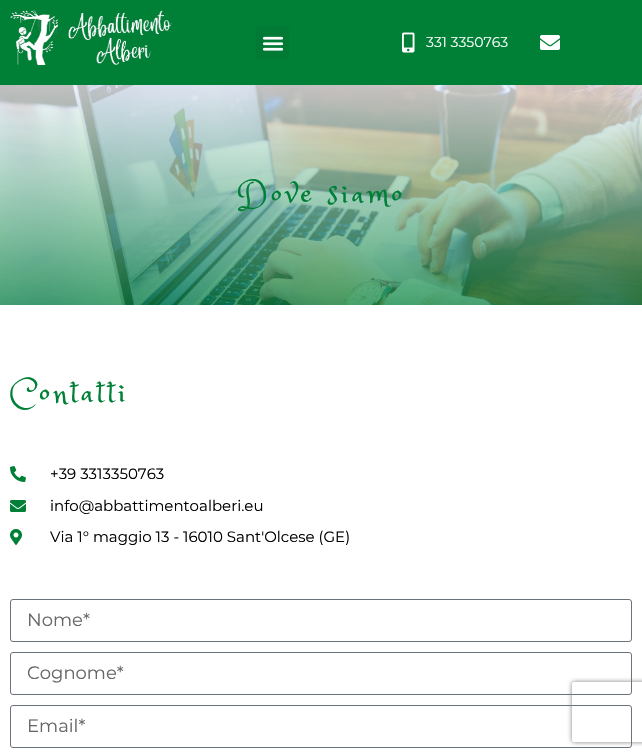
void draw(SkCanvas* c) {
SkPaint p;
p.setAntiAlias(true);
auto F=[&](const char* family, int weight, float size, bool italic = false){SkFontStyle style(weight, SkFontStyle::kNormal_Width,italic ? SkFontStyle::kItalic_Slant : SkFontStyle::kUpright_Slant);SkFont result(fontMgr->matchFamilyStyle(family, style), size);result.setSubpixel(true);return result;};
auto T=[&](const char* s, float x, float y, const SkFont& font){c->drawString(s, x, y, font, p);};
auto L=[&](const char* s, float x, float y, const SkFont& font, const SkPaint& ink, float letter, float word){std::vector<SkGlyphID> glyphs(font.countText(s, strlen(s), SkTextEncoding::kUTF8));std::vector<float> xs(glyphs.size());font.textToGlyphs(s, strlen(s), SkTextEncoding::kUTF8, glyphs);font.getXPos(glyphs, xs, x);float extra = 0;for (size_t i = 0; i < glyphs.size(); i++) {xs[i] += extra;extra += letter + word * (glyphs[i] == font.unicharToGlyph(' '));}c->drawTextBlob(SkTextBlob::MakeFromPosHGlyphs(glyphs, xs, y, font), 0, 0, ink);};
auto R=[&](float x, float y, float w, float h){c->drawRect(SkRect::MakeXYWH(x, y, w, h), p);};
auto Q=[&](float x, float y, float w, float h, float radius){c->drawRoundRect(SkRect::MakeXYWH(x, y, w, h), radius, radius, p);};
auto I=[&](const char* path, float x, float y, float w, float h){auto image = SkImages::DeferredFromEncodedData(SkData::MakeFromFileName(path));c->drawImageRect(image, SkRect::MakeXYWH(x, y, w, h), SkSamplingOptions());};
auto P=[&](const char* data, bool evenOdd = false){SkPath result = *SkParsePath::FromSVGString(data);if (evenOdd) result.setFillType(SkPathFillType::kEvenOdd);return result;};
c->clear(0xffffffff);
p.setColor(0xff008037);
R(0,0,642,85);
I("1.png",10,10,162,55);
p.setColor(0xff007a34);
Q(256,26,33,33,3);
I("2.png",262,36,22,15);
I("3.png",402,32,13,21);
auto f1 = F("Montserrat",400,14);
p.setColor(0xffffffff);
T("331 3350763",426,47,f1);
I("4.png",540,35,20,15);
I("5.png",0,85,642,220);
auto f2 = F("Princess Sofia",400,32);
p.setColor(0xff008037);
L("Dove siamo",237,202,f2,p,3.25,0);
L("Contatti",10,401,f2,p,3.25,0);
I("6.png",10,466,16,16);
auto f3 = F("Montserrat",400,15);
p.setColor(0xff000000);
T("+39 3313350763",50,479,f3);
I("7.png",10,500,16,12);
T("info@abbattimentoalberi.eu",50,511,f3);
I("8.png",10,529,12,16);
T("Via 1° maggio 13 - 16010 Sant'Olcese (GE)",50,542,f3);
p.setStroke(true);
p.setStrokeWidth(1);
p.setColor(0xff69727d);
c->drawRoundRect(SkRect::MakeXYWH(10.5,599.5,621,42),2.5,2.5,p);
auto f4 = F("Montserrat",400,18);
p.setStroke(false);
p.setColor(0xff666666);
T("Nome*",27,626,f4);
p.setStroke(true);
p.setColor(0xff69727d);
c->drawRoundRect(SkRect::MakeXYWH(10.5,652.5,621,42),2.5,2.5,p);
p.setStroke(false);
p.setColor(0xff666666);
T("Cognome*",27,679,f4);
p.setStroke(true);
p.setColor(0xff69727d);
c->drawRoundRect(SkRect::MakeXYWH(10.5,705.5,621,42),2.5,2.5,p);
c->save();
c->clipPath(P("M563 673h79v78h-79zm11 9h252c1 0 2 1 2 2v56c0 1-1 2-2 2h-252c-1 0-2-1-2-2v-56c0-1 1-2 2-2z",true),true);
p.setStroke(false);
p.setColor(0xff808080);
p.setMaskFilter(SkMaskFilter::MakeBlur(kNormal_SkBlurStyle, 2.5));
c->drawRoundRect(SkRect::MakeXYWH(572,682,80,60),2,2,p);
p.setMaskFilter(nullptr);
c->restore();
p.setColor(0xff666666);
T("Email*",27,732,f4);
}
